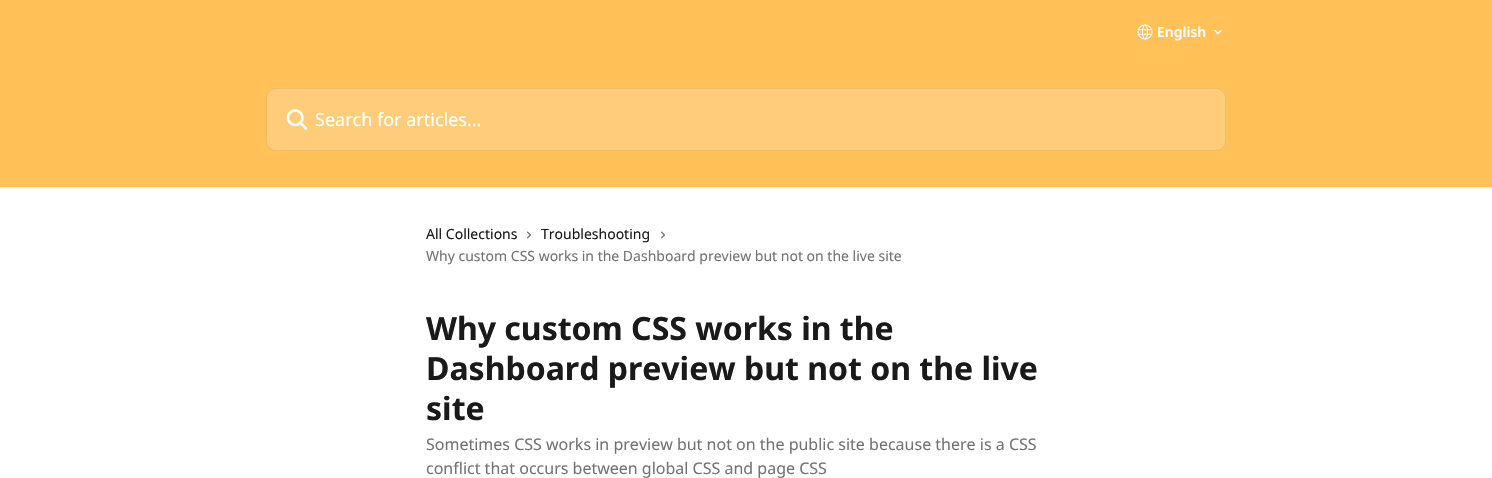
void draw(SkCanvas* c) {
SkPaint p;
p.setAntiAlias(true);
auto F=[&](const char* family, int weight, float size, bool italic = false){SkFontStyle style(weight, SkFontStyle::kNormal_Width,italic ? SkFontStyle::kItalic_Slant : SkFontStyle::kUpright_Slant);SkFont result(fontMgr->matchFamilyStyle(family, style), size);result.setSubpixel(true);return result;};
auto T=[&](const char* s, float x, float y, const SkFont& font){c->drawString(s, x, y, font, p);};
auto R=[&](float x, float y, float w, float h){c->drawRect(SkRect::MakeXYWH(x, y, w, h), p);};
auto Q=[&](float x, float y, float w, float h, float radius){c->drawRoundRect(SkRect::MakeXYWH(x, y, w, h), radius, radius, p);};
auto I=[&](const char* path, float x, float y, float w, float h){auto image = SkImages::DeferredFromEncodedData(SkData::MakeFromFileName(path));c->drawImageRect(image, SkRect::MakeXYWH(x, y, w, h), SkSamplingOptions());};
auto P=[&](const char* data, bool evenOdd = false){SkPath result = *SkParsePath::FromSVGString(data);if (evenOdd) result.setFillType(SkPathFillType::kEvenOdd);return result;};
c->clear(0xffffffff);
p.setColor(0xffffc158);
R(0,0,1492,187);
I("1.png",1137,24,16,16);
auto f1 = F("Noto Sans",600,14);
p.setColor(0xffffffff);
T("English",1157,37,f1);
p.setStroke(true);
p.setStrokeWidth(1.5);
p.setStrokeCap(SkPaint::kRound_Cap);
p.setStrokeJoin(SkPaint::kRound_Join);
c->drawPath(P("M1215 30.5l3 3l3-3"),p);
p.setStroke(false);
p.setColor(0x33ffffff);
Q(266,88,960,63,10);
p.setStroke(true);
p.setStrokeWidth(1);
p.setStrokeCap(SkPaint::kButt_Cap);
p.setStrokeJoin(SkPaint::kMiter_Join);
p.setColor(0x14000000);
c->drawRoundRect(SkRect::MakeXYWH(266.5,88.5,959,62),9.5,9.5,p);
I("2.png",286,109,22,21);
auto f2 = F("Noto Sans",400,18);
p.setStroke(false);
p.setColor(0xffffffff);
T("Search for articles...",315,126,f2);
auto f3 = F("Noto Sans",400,14);
p.setColor(0xff1a1a1a);
T("All Collections",426,239,f3);
I("3.png",527,231,4,8);
T("Troubleshooting",541,239,f3);
I("3.png",661,231,4,8);
p.setColor(0xff737373);
T("Why custom CSS works in the Dashboard preview but not on the live site",426,261,f3);
auto f4 = F("Noto Sans",700,32);
p.setColor(0xff1a1a1a);
T("Why custom CSS works in the",426,340,f4);
T("Dashboard preview but not on the live",426,380,f4);
T("site",426,420,f4);
auto f5 = F("Noto Sans",400,16);
p.setColor(0xff737373);
T("Sometimes CSS works in preview but not on the public site because there is a CSS",426,450,f5);
T("conflict that occurs between global CSS and page CSS",426,474,f5);
}
